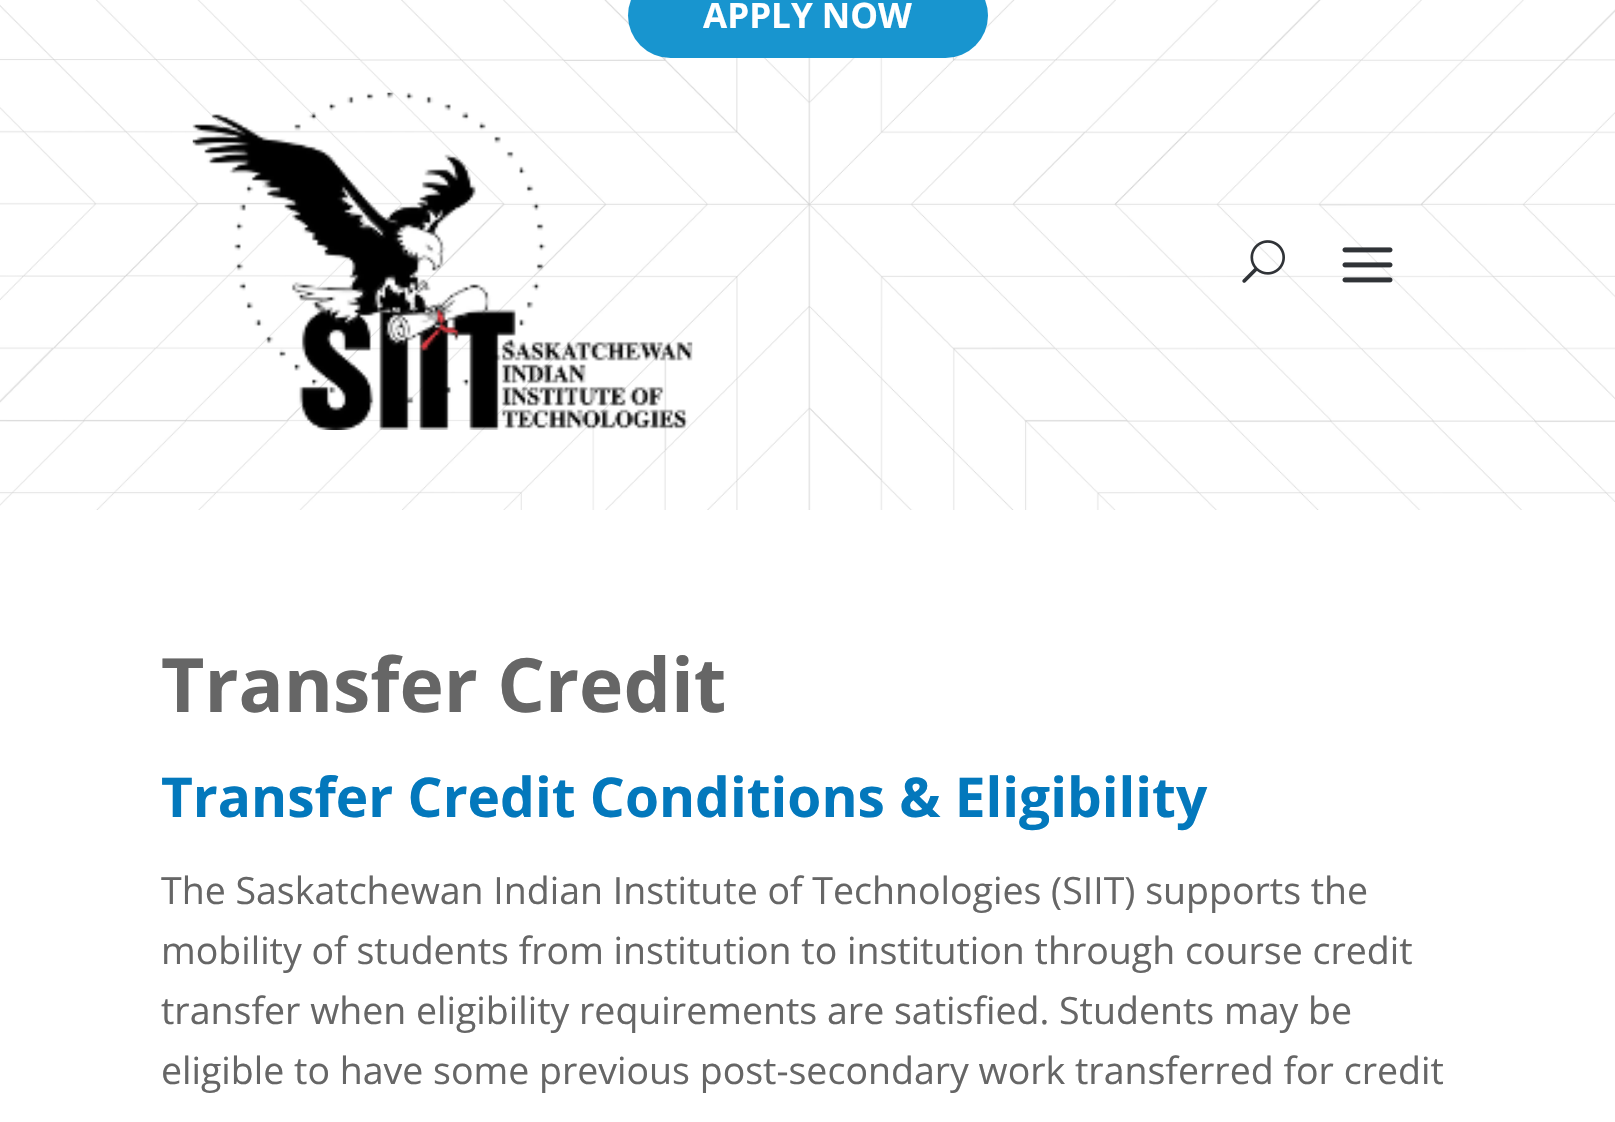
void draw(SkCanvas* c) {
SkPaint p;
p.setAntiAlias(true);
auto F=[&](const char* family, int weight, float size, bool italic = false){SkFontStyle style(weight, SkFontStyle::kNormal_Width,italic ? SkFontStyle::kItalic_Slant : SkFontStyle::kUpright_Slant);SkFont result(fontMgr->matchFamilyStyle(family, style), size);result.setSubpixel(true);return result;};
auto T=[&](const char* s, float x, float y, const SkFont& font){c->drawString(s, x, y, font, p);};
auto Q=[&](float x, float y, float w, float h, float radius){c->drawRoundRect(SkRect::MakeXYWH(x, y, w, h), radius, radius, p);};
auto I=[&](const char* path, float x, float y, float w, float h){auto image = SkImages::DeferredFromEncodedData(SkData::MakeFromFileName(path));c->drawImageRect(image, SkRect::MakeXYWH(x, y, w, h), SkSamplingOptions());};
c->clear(0xffffffff);
I("1.png",0,0,1615,510);
p.setColor(0xff1895cf);
Q(628,-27,360,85,42.5);
auto f1 = F("Open Sans",700,35);
p.setColor(0xffffffff);
T("APPLY NOW",703,28,f1);
I("2.png",192,92,501,338);
I("3.png",1242,240,43,43);
I("4.png",1342,247,51,36);
auto f2 = F("Open Sans",700,75);
p.setColor(0xff666666);
T("Transfer Credit",161,712,f2);
auto f3 = F("Open Sans",700,55);
p.setColor(0xff0378bc);
T("Transfer Credit Conditions & Eligibility",161,817,f3);
auto f4 = F("Open Sans",400,37.5);
p.setColor(0xff666666);
T("The Saskatchewan Indian Institute of Technologies (SIIT) supports the",161,904,f4);
T("mobility of students from institution to institution through course credit",161,964,f4);
T("transfer when eligibility requirements are satisfied. Students may be",161,1024,f4);
T("eligible to have some previous post-secondary work transferred for credit",161,1084,f4);
}
